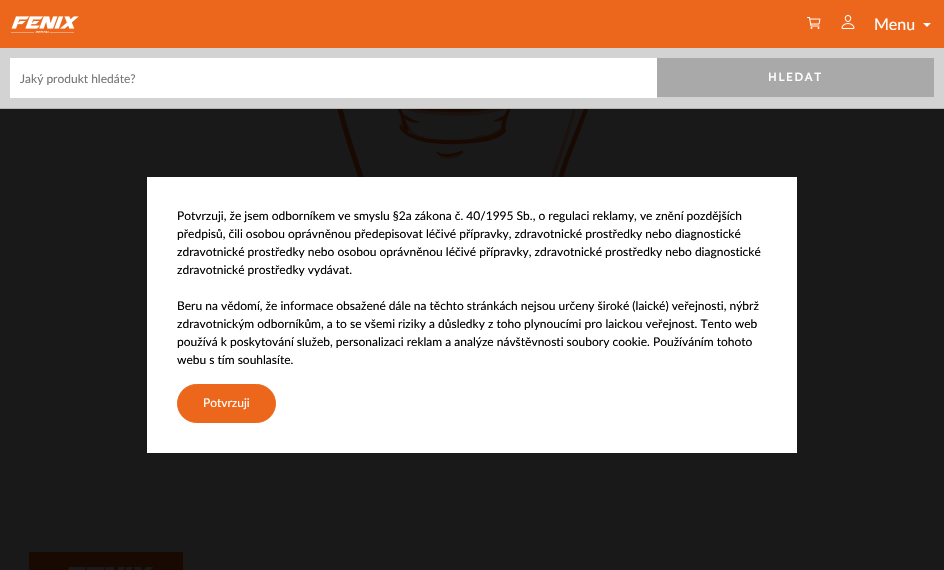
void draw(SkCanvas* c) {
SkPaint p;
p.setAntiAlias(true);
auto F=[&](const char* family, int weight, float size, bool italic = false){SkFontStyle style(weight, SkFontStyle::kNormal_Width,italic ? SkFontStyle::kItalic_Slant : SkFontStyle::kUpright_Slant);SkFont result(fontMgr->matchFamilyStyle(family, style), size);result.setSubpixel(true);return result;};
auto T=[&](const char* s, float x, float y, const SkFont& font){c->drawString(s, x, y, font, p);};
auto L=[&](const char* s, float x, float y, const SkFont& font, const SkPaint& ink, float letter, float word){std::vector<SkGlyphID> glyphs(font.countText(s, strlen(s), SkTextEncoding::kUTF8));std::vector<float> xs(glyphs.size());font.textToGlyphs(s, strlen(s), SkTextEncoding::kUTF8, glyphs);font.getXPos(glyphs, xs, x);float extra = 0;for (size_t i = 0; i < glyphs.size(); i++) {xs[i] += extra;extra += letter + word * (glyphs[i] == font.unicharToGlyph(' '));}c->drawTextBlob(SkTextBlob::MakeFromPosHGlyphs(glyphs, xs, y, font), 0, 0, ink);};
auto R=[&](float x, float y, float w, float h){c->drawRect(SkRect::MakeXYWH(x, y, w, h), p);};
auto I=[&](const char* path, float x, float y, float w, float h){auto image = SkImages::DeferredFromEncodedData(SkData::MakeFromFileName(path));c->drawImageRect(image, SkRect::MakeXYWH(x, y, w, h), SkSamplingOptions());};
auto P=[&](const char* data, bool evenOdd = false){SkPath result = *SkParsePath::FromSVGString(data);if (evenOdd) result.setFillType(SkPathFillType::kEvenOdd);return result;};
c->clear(0xff191919);
p.setColor(0xffb5b7b7);
R(0,108,944,1);
p.setColor(0xffec671b);
R(0,0,944,48);
I("1.png",11,16,68,17);
I("2.png",807,17,14,12);
I("3.png",841,15,14,14);
auto f1 = F("Lato",400,16);
p.setColor(0xffffffff);
T("Menu",874,30,f1);
c->drawPath(P("M923 23h8l-4 4z"),p);
p.setColor(0xffd3d3d3);
R(0,48,944,60);
p.setColor(0xffffffff);
R(10,58,647,40);
auto f2 = F("Lato",400,12);
p.setColor(0xff757575);
T("Jaký produkt hledáte?",20,83,f2);
p.setColor(0xffa9a9a9);
R(657,58,277,39);
auto f3 = F("Lato",700,11);
p.setColor(0xffffffff);
L("HLEDAT",768,81,f3,p,2,0);
I("4.png",337,109,252,68);
R(147,177,650,276);
p.setColor(0xff000000);
T("Potvrzuji, že jsem odborníkem ve smyslu §2a zákona č. 40/1995 Sb., o regulaci reklamy, ve znění pozdějších",177,220,f2);
T("předpisů, čili osobou oprávněnou předepisovat léčivé přípravky, zdravotnické prostředky nebo diagnostické",177,238,f2);
T("zdravotnické prostředky nebo osobou oprávněnou léčivé přípravky, zdravotnické prostředky nebo diagnostické",177,256,f2);
T("zdravotnické prostředky vydávat.",177,274,f2);
T("Beru na vědomí, že informace obsažené dále na těchto stránkách nejsou určeny široké (laické) veřejnosti, nýbrž",177,310,f2);
T("zdravotnickým odborníkům, a to se všemi riziky a důsledky z toho plynoucími pro laickou veřejnost. Tento web",177,328,f2);
T("používá k poskytování služeb, personalizaci reklam a analýze návštěvnosti soubory cookie. Používáním tohoto",177,346,f2);
T("webu s tím souhlasíte.",177,364,f2);
p.setColor(0xffec671b);
c->drawRoundRect(SkRect::MakeXYWH(177.5,384.5,98,38),19,19,p);
p.setStroke(true);
p.setStrokeWidth(1);
c->drawRoundRect(SkRect::MakeXYWH(177.5,384.5,98,38),19,19,p);
p.setStroke(false);
p.setColor(0xffffffff);
T("Potvrzuji",203,407,f2);
p.setColor(0xff180a03);
R(29,552,154,18);
I("5.png",68,567,85,3);
}
